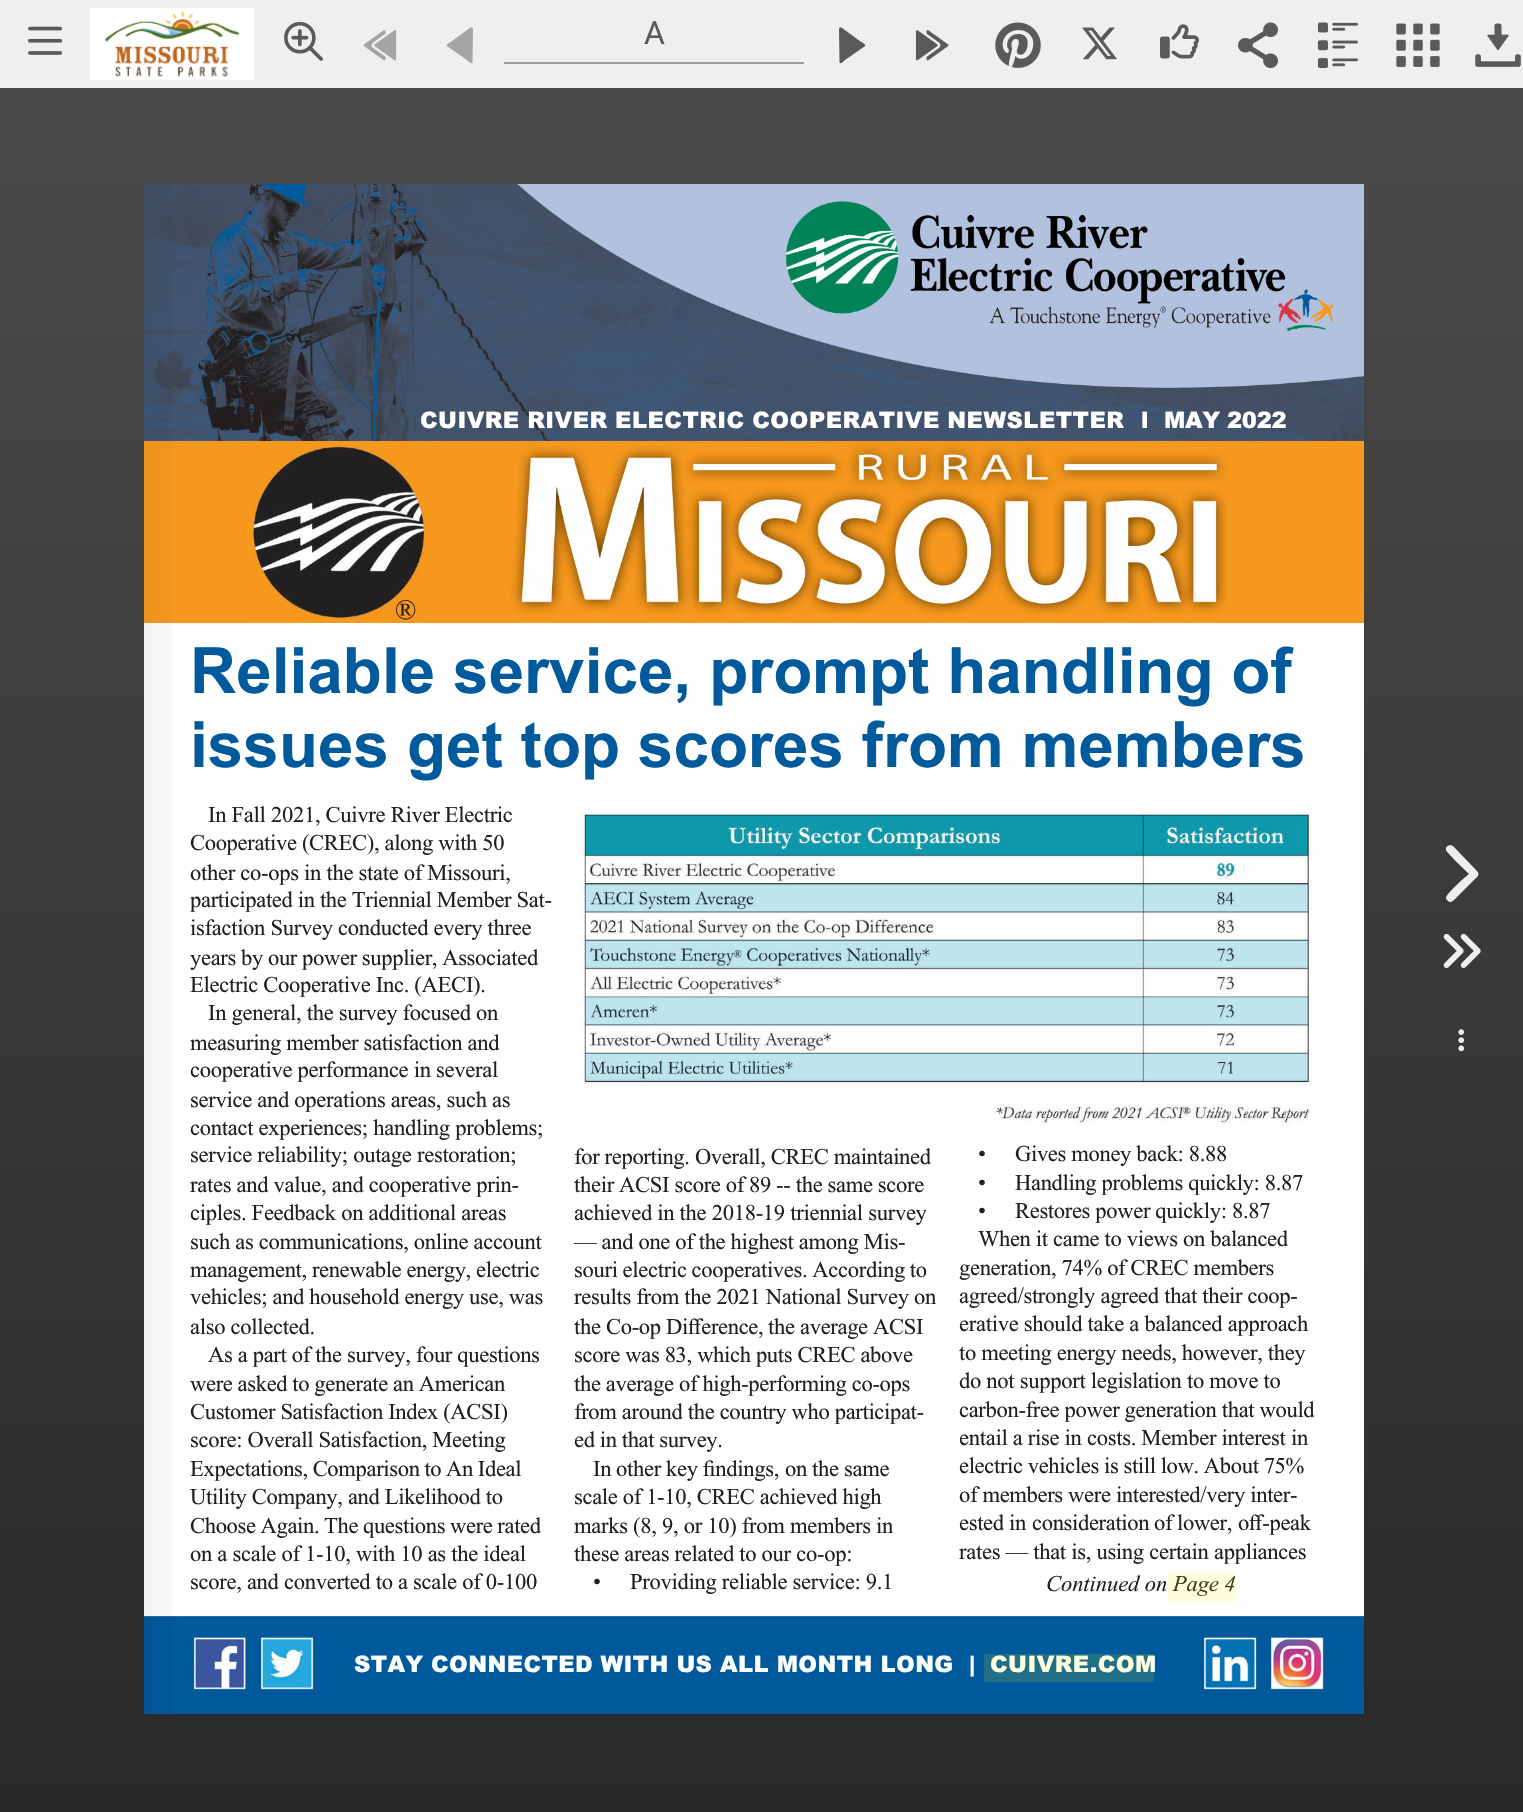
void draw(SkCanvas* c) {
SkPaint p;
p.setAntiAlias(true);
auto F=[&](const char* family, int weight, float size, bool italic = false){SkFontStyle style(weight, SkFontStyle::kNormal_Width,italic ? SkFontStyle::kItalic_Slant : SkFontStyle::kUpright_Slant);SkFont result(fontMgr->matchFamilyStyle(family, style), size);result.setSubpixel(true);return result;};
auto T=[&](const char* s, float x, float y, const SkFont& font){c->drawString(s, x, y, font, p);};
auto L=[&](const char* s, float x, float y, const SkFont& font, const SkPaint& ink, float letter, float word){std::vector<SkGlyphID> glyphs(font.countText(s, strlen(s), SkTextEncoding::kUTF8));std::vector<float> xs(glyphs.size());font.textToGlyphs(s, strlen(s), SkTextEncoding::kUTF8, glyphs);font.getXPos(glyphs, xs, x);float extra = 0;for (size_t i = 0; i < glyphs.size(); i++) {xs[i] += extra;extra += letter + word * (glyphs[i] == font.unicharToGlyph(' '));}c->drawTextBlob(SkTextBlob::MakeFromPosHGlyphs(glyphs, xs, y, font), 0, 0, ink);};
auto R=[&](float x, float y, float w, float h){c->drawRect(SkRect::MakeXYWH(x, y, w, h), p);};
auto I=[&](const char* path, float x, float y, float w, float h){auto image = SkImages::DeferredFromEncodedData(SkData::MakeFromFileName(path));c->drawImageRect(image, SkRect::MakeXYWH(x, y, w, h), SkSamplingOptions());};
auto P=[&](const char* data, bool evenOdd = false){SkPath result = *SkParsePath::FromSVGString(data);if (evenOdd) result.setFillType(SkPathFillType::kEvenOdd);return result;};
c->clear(0xffffffff);
{
const SkColor colors[] = {0xff4c4c4c,0xff292929};
const float stops[] = {0,1};
const SkPoint ends[] = {{762,0}, {762,1812}};
p.setShader(SkGradientShader::MakeLinear(ends, colors, stops, 2, SkTileMode::kClamp));
p.setAlpha(255);
}
R(0,88,1523,1724);
p.setShader(nullptr);
p.setColor(0xffefefef);
R(0,0,1523,88);
I("1.png",28,26,35,29);
I("2.png",90,8,164,72);
I("3.png",284,21,39,40);
I("4.png",363,30,34,31);
p.setColor(0xffa5a5a5);
c->drawPath(P("M447.5 46.5l19.5 13.5c0 0 4.5 5 5.5 2.5l.5-33.5l-.5-1.5c-.5 0-1.5 0-2 0l-19 14c-2.5 1.5-6.5 3.5-4 5z"),p);
p.setColor(0xff9e9e9e);
R(504,62,300,2);
auto f1 = F("Roboto",400,32);
p.setColor(0xff5a5a5a);
T("A",644,44,f1);
c->drawPath(P("M864.5 46.5l-19.5 13.5c0 0-4.5 5-5.5 2.5l-.5-33.5l.5-1.5c.5 0 1.5 0 2 0l19 14c2.5 1.5 6.5 3.5 4 5z"),p);
I("5.png",915,30,34,31);
I("6.png",995,22,46,46);
I("7.png",1082,27,35,33);
I("8.png",1160,24,39,35);
I("9.png",1238,22,40,46);
I("10.png",1317,22,41,46);
I("11.png",1396,23,44,44);
I("12.png",1475,23,46,44);
I("13.png",144,184,1220,1530);
{
const SkColor colors[] = {0x00000000,0x0a000000};
const float stops[] = {.95,1};
const SkPoint ends[] = {{1364,951}, {144,951}};
p.setShader(SkGradientShader::MakeLinear(ends, colors, stops, 2, SkTileMode::kClamp));
p.setAlpha(255);
}
R(144,184,28,1530);
auto f2 = F("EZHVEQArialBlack",900,22.6);
p.setShader(nullptr);
p.setColor(0xffffffff);
L("CUIVRE RIVER ELECTRIC COOPERATIVE NEWSLETTER",420,428,f2,p,.5,-.5);
T("l",1141,428,f2);
L("MAY 2022",1164,428,f2,p,-.25,0);
auto f3 = F("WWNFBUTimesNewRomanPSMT",400,28);
p.setColor(0xff231f20);
T("®",395,619,f3);
auto f4 = F("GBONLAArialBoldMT",700,63.75);
p.setColor(0xff005a9c);
L("Reliable service, prompt handling of",190,693,f4,p,.1,0);
L("issues get top scores from members",190,767,f4,p,.1,0);
auto f5 = F("WWNFBUTimesNewRomanPSMT",400,22.6);
p.setColor(0xff231f20);
L("In Fall 2021, Cuivre River Electric",208,822,f5,p,-.3,0);
L("Cooperative (CREC), along with 50",190,850,f5,p,-.35,0);
L("other co-ops in the state of Missouri,",190,880,f5,p,-.3,0);
L("participated in the Triennial Member Sat-",190,907,f5,p,-.35,0);
L("isfaction Survey conducted every three",190,935,f5,p,-.3,0);
L("years by our power supplier, Associated",190,965,f5,p,-.35,-.25);
L("Electric Cooperative Inc. (AECI).",190,992,f5,p,-.3,0);
L("In general, the survey focused on",208,1020,f5,p,-.3,0);
L("measuring member satisfaction and",190,1050,f5,p,-.35,0);
L("cooperative performance in several",190,1077,f5,p,-.3,0);
L("service and operations areas, such as",190,1107,f5,p,-.3,0);
L("contact experiences; handling problems;",190,1135,f5,p,-.3,0);
L("service reliability; outage restoration;",190,1162,f5,p,-.3,0);
L("for reporting. Overall, CREC maintained",574,1164,f5,p,-.35,0);
T("•",978,1161,f5);
L("Gives money back: 8.88",1015,1161,f5,p,-.35,0);
L("rates and value, and cooperative prin-",190,1192,f5,p,-.3,0);
L("their ACSI score of 89 -- the same score",574,1192,f5,p,-.3,-.25);
T("•",978,1190,f5);
L("Handling problems quickly: 8.87",1015,1190,f5,p,-.35,0);
L("ciples. Feedback on additional areas",190,1220,f5,p,-.3,0);
L("achieved in the 2018-19 triennial survey",574,1220,f5,p,-.3,0);
T("•",978,1218,f5);
L("Restores power quickly: 8.87",1015,1218,f5,p,-.35,0);
L("such as communications, online account",190,1249,f5,p,-.35,0);
L("— and one of the highest among Mis-",574,1249,f5,p,-.35,0);
L("When it came to views on balanced",978,1246,f5,p,-.35,0);
L("management, renewable energy, electric",190,1277,f5,p,-.4,0);
L("souri electric cooperatives. According to",574,1277,f5,p,-.3,-.5);
L("generation, 74% of CREC members",959,1275,f5,p,-.35,0);
L("vehicles; and household energy use, was",190,1304,f5,p,-.35,0);
L("results from the 2021 National Survey on",574,1304,f5,p,-.3,0);
L("agreed/strongly agreed that their coop-",959,1303,f5,p,-.3,0);
L("also collected.",190,1334,f5,p,-.3,0);
auto f6 = F("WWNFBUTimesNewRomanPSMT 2",400,22.6);
L("the",574,1334,f6,p,-.35,0);
L("Co-op",606,1334,f6,p,-.35,0);
L("Diﬀerence,",666,1334,f6,p,-.35,0);
L("the",768,1334,f6,p,-.35,0);
L("average",800,1334,f6,p,-.35,0);
L("ACSI",873,1334,f6,p,-.35,0);
L("erative should take a balanced approach",959,1331,f5,p,-.3,0);
L("As a part of the survey, four questions",208,1362,f5,p,-.35,0);
L("score was 83, which puts CREC above",574,1362,f5,p,-.35,0);
L("to meeting energy needs, however, they",959,1360,f5,p,-.35,0);
L("were asked to generate an American",190,1391,f5,p,-.35,-.25);
L("the average of high-performing co-ops",574,1391,f5,p,-.35,0);
L("do not support legislation to move to",959,1388,f5,p,-.3,0);
L("Customer Satisfaction Index (ACSI)",190,1419,f5,p,-.35,0);
L("from around the country who participat-",574,1419,f5,p,-.35,0);
L("carbon-free power generation that would",959,1417,f5,p,-.35,0);
L("score: Overall Satisfaction, Meeting",190,1447,f5,p,-.3,0);
L("ed in that survey.",574,1447,f5,p,-.4,0);
L("entail a rise in costs. Member interest in",959,1445,f5,p,-.3,0);
L("Expectations, Comparison to An Ideal",190,1476,f5,p,-.35,-.5);
L("In",593,1476,f6,p,-.3,0);
L("other",616,1476,f6,p,-.3,0);
L("key",666,1476,f6,p,-.3,0);
L("ﬁndings,",703,1476,f6,p,-.3,0);
L("on",785,1476,f6,p,-.3,0);
L("the",812,1476,f6,p,-.3,0);
L("same",844,1476,f6,p,-.3,0);
L("electric vehicles is still low. About 75%",959,1473,f5,p,-.35,-.25);
L("Utility Company, and Likelihood to",190,1504,f5,p,-.35,0);
L("scale of 1-10, CREC achieved high",574,1504,f5,p,-.35,0);
L("of members were interested/very inter-",959,1502,f5,p,-.35,0);
L("Choose Again. The questions were rated",190,1533,f5,p,-.35,-.5);
L("marks (8, 9, or 10) from members in",574,1533,f5,p,-.3,0);
L("ested",959,1530,f6,p,-.35,0);
L("in",1009,1530,f6,p,-.35,0);
L("consideration",1032,1530,f6,p,-.35,0);
L("of",1154,1530,f6,p,-.35,0);
L("lower,",1177,1530,f6,p,-.35,0);
L("oﬀ-peak",1238,1530,f6,p,-.35,0);
L("on a scale of 1-10, with 10 as the ideal",190,1561,f5,p,-.3,0);
L("these areas related to our co-op:",574,1561,f5,p,-.3,0);
L("rates — that is, using certain appliances",959,1559,f5,p,-.3,0);
L("score, and converted to a scale of 0-100",190,1589,f5,p,-.3,0);
T("•",593,1589,f5);
L("Providing reliable service: 9.1",630,1589,f5,p,-.3,0);
auto f7 = F("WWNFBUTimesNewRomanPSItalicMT",400,22.6,true);
L("Continued on Page 4",1046,1591,f7,p,-.1,0);
p.setColor(0xffffffff);
L("STAY CONNECTED WITH US ALL MONTH LONG",354,1672,f2,p,.4,-.25);
T("|",969,1672,f2);
L("CUIVRE.COM",990,1672,f2,p,.5,0);
p.setColor(0x21ffff00);
R(1168,1572,68,30);
R(984,1654,170,28);
p.setColor(0xffeeeeee);
c->drawPath(P("M1477 871c4 4-1 7-4 10l-16 16c-2 2-6 7-9 4c-1-1-2-2-2-3c0-4 19-21 23-24c-4-4-22-21-23-24c-1-4 4-6 7-4z"),p);
I("14.png",1443,933,38,35);
I("15.png",1458,1029,7,23);
}
